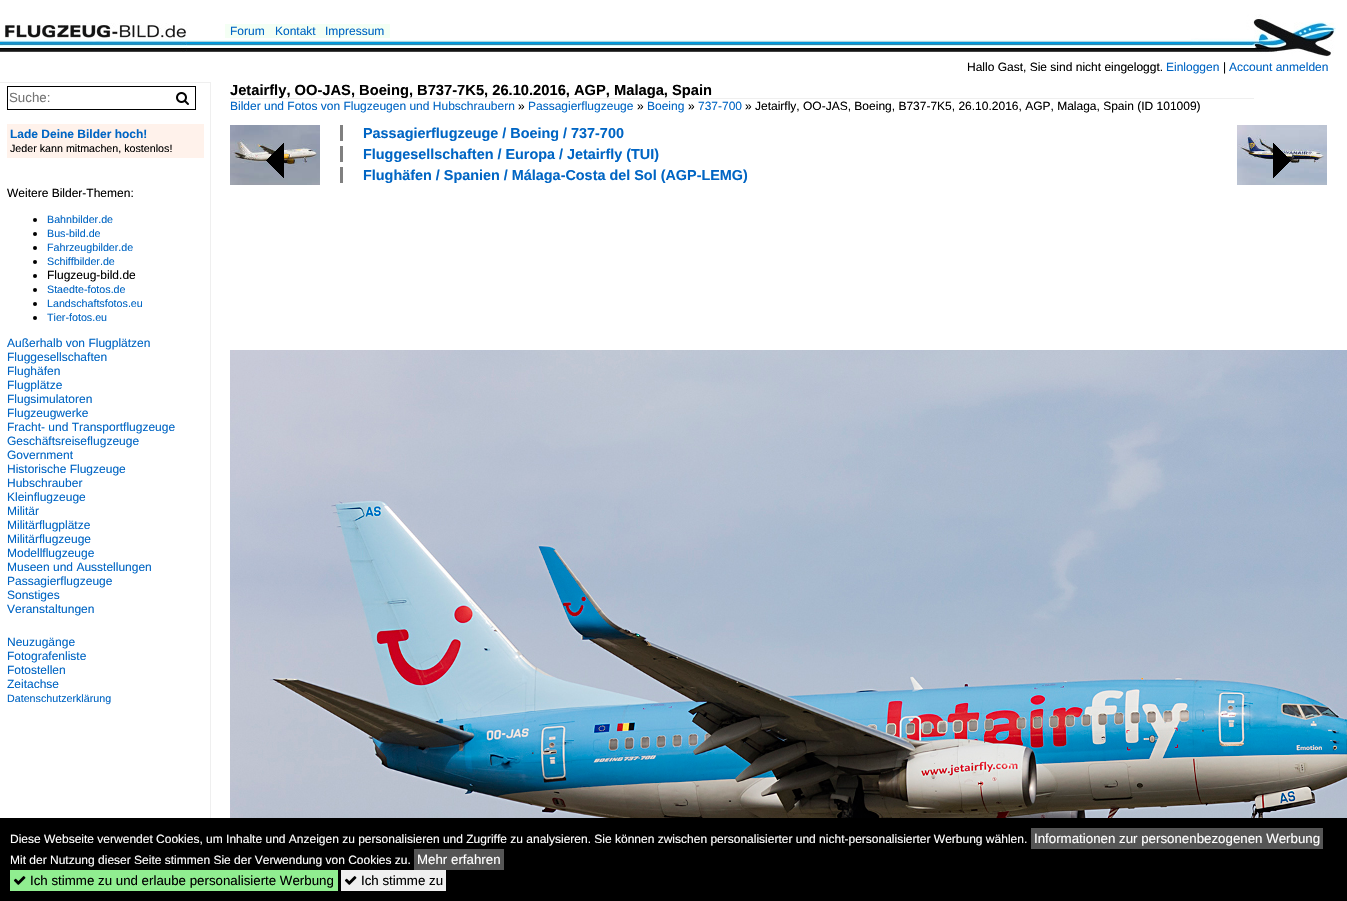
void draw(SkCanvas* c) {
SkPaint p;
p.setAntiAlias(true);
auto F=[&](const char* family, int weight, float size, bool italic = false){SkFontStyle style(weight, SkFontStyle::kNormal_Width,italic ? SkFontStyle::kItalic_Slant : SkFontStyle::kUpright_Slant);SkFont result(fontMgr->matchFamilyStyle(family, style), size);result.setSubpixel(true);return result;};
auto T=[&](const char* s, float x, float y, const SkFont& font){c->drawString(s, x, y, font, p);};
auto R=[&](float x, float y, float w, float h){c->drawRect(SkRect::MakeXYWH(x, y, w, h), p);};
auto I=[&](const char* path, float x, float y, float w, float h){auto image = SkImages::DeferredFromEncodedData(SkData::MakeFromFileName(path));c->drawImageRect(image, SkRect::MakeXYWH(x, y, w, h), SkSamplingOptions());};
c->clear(0xffffffff);
I("3.png",0,40,1191,12);
I("1.png",3,23,184,29);
p.setColor(0xfff4fff4);
R(225,24,165,14);
auto f1 = F("Liberation Sans",400,12);
p.setColor(0xff0065c4);
T("Forum",230,35,f1);
T("Kontakt",275,35,f1);
T("Impressum",325,35,f1);
I("2.png",1191,14,145,43);
p.setColor(0xff000000);
T("Hallo Gast, Sie sind nicht eingeloggt.",967,71,f1);
p.setColor(0xff0065c4);
T("Einloggen",1166,71,f1);
p.setColor(0xff000000);
T("|",1223,71,f1);
p.setColor(0xff0065c4);
T("Account anmelden",1229,71,f1);
p.setColor(0xffefefef);
R(0,82,211,1);
R(210,82,1,736);
p.setColor(0xff000000);
R(7,86,189,1);
R(7,109,163,1);
R(7,86,1,24);
auto f2 = F("Liberation Sans",400,13.3);
p.setColor(0xff757575);
T("Suche:",9,102,f2);
p.setColor(0xff000000);
R(195,86,1,24);
R(170,109,26,1);
I("4.png",176,92,13,13);
p.setColor(0xfffff2eb);
R(7,124,197,34);
auto f3 = F("Liberation Sans",700,12);
p.setColor(0xff0065c4);
T("Lade Deine Bilder hoch!",10,138,f3);
auto f4 = F("Liberation Sans",400,10.7);
p.setColor(0xff000000);
T("Jeder kann mitmachen, kostenlos!",10,152,f4);
T("Weitere Bilder-Themen:",7,197,f1);
c->drawCircle(35,220,2,p);
p.setColor(0xff0065c4);
T("Bahnbilder.de",47,223,f4);
p.setColor(0xff000000);
c->drawCircle(35,234,2,p);
p.setColor(0xff0065c4);
T("Bus-bild.de",47,237,f4);
p.setColor(0xff000000);
c->drawCircle(35,248,2,p);
p.setColor(0xff0065c4);
T("Fahrzeugbilder.de",47,251,f4);
p.setColor(0xff000000);
c->drawCircle(35,262,2,p);
p.setColor(0xff0065c4);
T("Schiffbilder.de",47,265,f4);
p.setColor(0xff000000);
c->drawCircle(35,276,2,p);
T("Flugzeug-bild.de",47,279,f1);
c->drawCircle(35,290,2,p);
p.setColor(0xff0065c4);
T("Staedte-fotos.de",47,293,f4);
p.setColor(0xff000000);
c->drawCircle(35,304,2,p);
p.setColor(0xff0065c4);
T("Landschaftsfotos.eu",47,307,f4);
p.setColor(0xff000000);
c->drawCircle(35,318,2,p);
p.setColor(0xff0065c4);
T("Tier-fotos.eu",47,321,f4);
T("Außerhalb von Flugplätzen",7,347,f1);
T("Fluggesellschaften",7,361,f1);
T("Flughäfen",7,375,f1);
T("Flugplätze",7,389,f1);
T("Flugsimulatoren",7,403,f1);
T("Flugzeugwerke",7,417,f1);
T("Fracht- und Transportflugzeuge",7,431,f1);
T("Geschäftsreiseflugzeuge",7,445,f1);
T("Government",7,459,f1);
T("Historische Flugzeuge",7,473,f1);
T("Hubschrauber",7,487,f1);
T("Kleinflugzeuge",7,501,f1);
T("Militär",7,515,f1);
T("Militärflugplätze",7,529,f1);
T("Militärflugzeuge",7,543,f1);
T("Modellflugzeuge",7,557,f1);
T("Museen und Ausstellungen",7,571,f1);
T("Passagierflugzeuge",7,585,f1);
T("Sonstiges",7,599,f1);
T("Veranstaltungen",7,613,f1);
T("Neuzugänge",7,646,f1);
T("Fotografenliste",7,660,f1);
T("Fotostellen",7,674,f1);
T("Zeitachse",7,688,f1);
T("Datenschutzerklärung",7,702,f4);
p.setColor(0xffefefef);
R(230,98,1024,1);
auto f5 = F("Liberation Sans",700,14.7);
p.setColor(0xff000000);
T("Jetairfly, OO-JAS, Boeing, B737-7K5, 26.10.2016, AGP, Malaga, Spain",230,95,f5);
p.setColor(0xff0065c4);
T("Bilder und Fotos von Flugzeugen und Hubschraubern",230,110,f1);
p.setColor(0xff000000);
T("»",518,110,f1);
p.setColor(0xff0065c4);
T("Passagierflugzeuge",528,110,f1);
p.setColor(0xff000000);
T("»",637,110,f1);
p.setColor(0xff0065c4);
T("Boeing",647,110,f1);
p.setColor(0xff000000);
T("»",688,110,f1);
p.setColor(0xff0065c4);
T("737-700",698,110,f1);
p.setColor(0xff000000);
T("» Jetairfly, OO-JAS, Boeing, B737-7K5, 26.10.2016, AGP, Malaga, Spain (ID 101009)",745,110,f1);
I("5.png",230,125,90,60);
I("6.png",266,143,18,35);
p.setColor(0xff808080);
R(340,125,3,16);
auto f6 = F("Liberation Sans",700,14.4);
p.setColor(0xff0065c4);
T("Passagierflugzeuge / Boeing / 737-700",363,138,f6);
p.setColor(0xff808080);
R(340,146,3,16);
p.setColor(0xff0065c4);
T("Fluggesellschaften / Europa / Jetairfly (TUI)",363,159,f6);
p.setColor(0xff808080);
R(340,167,3,16);
p.setColor(0xff0065c4);
T("Flughäfen / Spanien / Málaga-Costa del Sol (AGP-LEMG)",363,180,f6);
I("7.png",1237,125,90,60);
I("8.png",1273,143,18,35);
I("9.png",230,350,1117,468);
p.setColor(0xff000000);
R(0,818,1347,83);
p.setColor(0xffffffff);
T("Diese Webseite verwendet Cookies, um Inhalte und Anzeigen zu personalisieren und Zugriffe zu analysieren. Sie können zwischen personalisierter und nicht-personalisierter Werbung wählen.",10,843,f1);
p.setColor(0xff555555);
R(1031,828,292,21);
p.setColor(0xffffffff);
T("Informationen zur personenbezogenen Werbung",1034,843,f2);
T("Mit der Nutzung dieser Seite stimmen Sie der Verwendung von Cookies zu.",10,864,f1);
p.setColor(0xff555555);
R(414,849,90,21);
p.setColor(0xffffffff);
T("Mehr erfahren",417,864,f2);
p.setColor(0xff90ee90);
R(10,870,328,21);
I("10.png",13,876,13,9);
p.setColor(0xff000000);
T("Ich stimme zu und erlaube personalisierte Werbung",30,885,f2);
p.setColor(0xffefefef);
R(341,870,105,21);
I("11.png",344,876,13,9);
p.setColor(0xff000000);
T("Ich stimme zu",361,885,f2);
}
